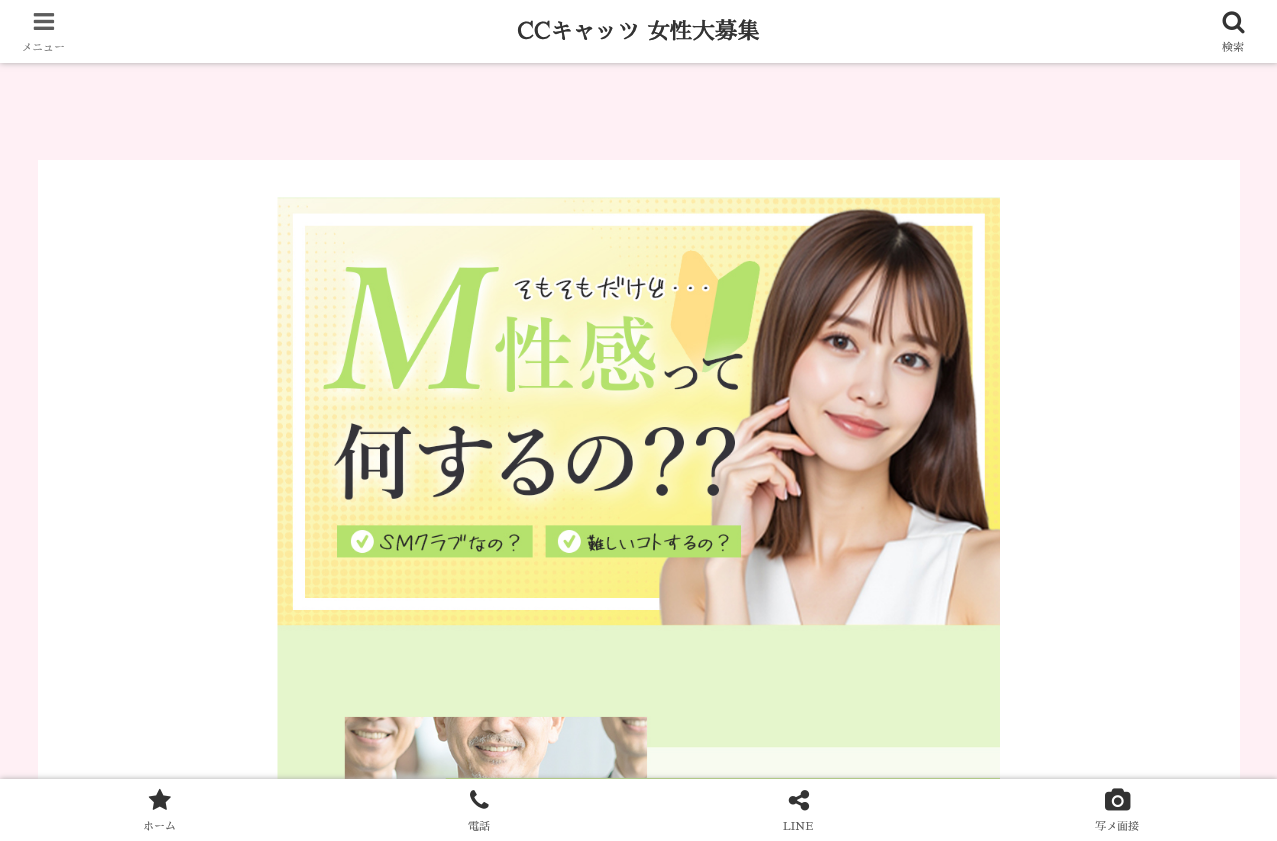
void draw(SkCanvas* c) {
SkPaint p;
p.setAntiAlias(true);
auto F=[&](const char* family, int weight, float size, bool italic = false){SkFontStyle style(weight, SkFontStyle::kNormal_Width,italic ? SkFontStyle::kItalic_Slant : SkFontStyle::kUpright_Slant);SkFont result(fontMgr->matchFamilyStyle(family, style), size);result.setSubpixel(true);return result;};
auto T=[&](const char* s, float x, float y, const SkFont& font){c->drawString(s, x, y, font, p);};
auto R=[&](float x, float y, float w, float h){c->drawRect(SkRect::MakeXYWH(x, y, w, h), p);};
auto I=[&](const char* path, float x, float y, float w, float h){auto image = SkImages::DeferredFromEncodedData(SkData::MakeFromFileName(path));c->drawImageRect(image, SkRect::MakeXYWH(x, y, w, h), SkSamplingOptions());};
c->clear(0xfffff0f5);
p.setColor(0xffa9a9a9);
p.setMaskFilter(SkMaskFilter::MakeBlur(kNormal_SkBlurStyle, 3));
c->drawRect(SkRect::MakeXYWH(0,0,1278,63),p);
p.setMaskFilter(nullptr);
p.setColor(0xffffffff);
R(0,0,1277,63);
auto f1 = F("Sawarabi Mincho",700,22.5);
p.setColor(0xff333333);
T("CCキャッツ 女性大募集",517,39,f1);
I("1.png",33,13,22,17);
auto f2 = F("Sawarabi Mincho",400,11);
p.setColor(0xff7c7c7c);
T("メニュー",21,51,f2);
I("2.png",1222,11,23,23);
p.setColor(0xff5c5c5c);
T("検索",1222,51,f2);
p.setColor(0xffffffff);
R(38,160,1202,619);
I("3.png",277,197,723,582);
p.setColor(0xffa9a9a9);
p.setMaskFilter(SkMaskFilter::MakeBlur(kNormal_SkBlurStyle, 3));
c->drawRect(SkRect::MakeXYWH(0,779,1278,62),p);
p.setMaskFilter(nullptr);
p.setColor(0xffffffff);
R(0,779,1277,62);
I("4.png",148,788,23,22);
p.setColor(0xff5c5c5c);
T("ホーム",143,830,f2);
I("5.png",470,790,19,19);
T("電話",468,830,f2);
I("6.png",788,790,22,21);
T("LINE",783,830,f2);
I("7.png",1105,788,26,23);
T("写メ面接",1095,830,f2);
}
